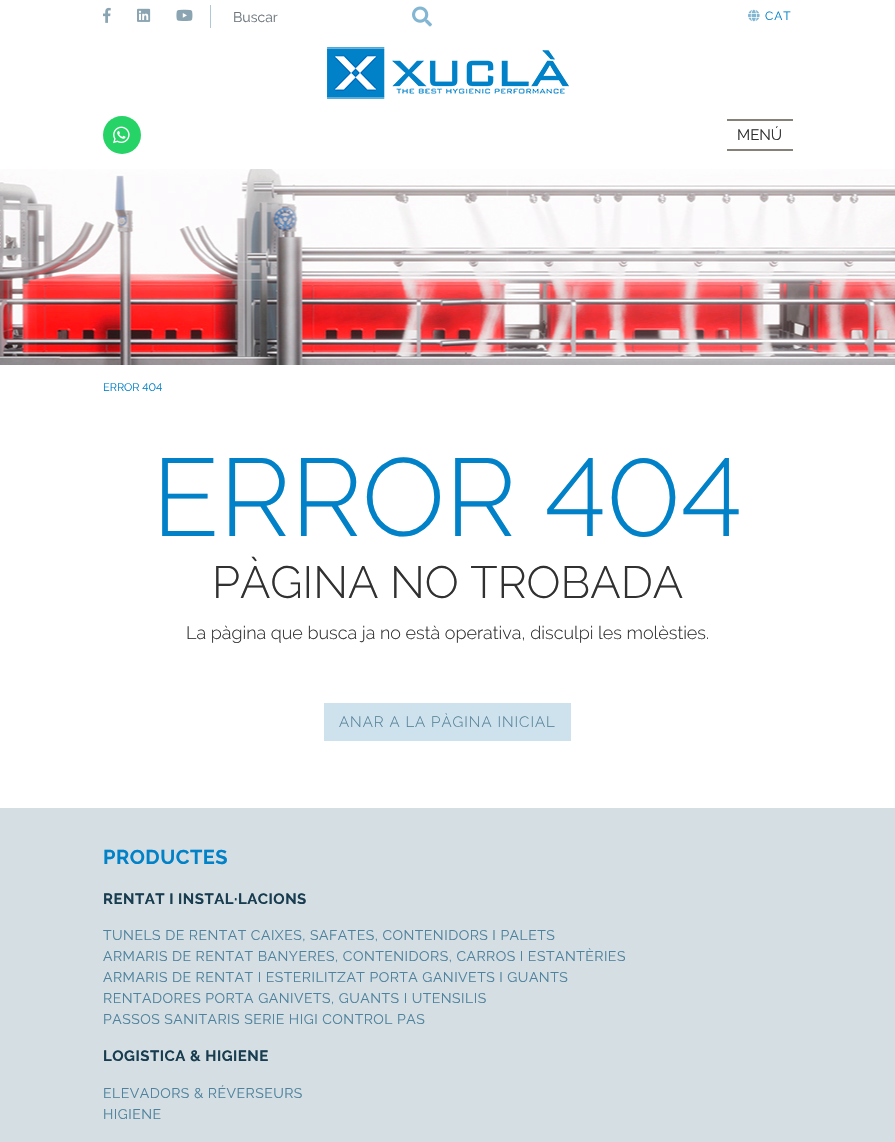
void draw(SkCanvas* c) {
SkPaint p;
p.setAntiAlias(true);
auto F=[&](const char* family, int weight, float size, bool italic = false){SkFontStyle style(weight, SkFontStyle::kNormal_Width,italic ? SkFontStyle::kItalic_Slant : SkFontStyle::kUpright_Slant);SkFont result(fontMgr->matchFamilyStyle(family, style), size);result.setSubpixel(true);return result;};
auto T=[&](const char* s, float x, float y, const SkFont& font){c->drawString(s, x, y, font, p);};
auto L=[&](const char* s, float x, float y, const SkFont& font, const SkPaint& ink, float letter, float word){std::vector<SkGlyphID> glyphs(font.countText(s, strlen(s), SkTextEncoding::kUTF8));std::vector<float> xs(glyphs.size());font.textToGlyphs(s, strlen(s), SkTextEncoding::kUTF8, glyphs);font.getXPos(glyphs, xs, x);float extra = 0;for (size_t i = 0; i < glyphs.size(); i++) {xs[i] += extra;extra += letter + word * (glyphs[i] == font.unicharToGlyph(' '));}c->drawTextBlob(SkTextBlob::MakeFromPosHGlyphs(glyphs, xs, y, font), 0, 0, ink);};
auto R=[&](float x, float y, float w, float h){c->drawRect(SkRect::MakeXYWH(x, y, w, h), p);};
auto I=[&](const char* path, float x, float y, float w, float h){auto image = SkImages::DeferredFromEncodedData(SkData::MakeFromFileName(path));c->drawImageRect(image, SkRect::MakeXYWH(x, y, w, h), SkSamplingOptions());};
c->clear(0xffffffff);
p.setColor(0xffafc8d6);
R(210,5,1,23);
I("1.png",103,7,8,16);
I("2.png",137,8,14,14);
I("3.png",176,9,17,12);
auto f1 = F("Raleway",400,14);
p.setColor(0xff6c757d);
T("Buscar",233,22,f1);
I("4.png",412,6,20,21);
I("5.png",748,9,12,13);
auto f2 = F("Raleway",400,12);
p.setColor(0xff0081c8);
L("CAT",765,20,f2,p,1,0);
I("6.png",327,47,242,52);
p.setColor(0xff25d366);
c->drawCircle(122,135,19,p);
I("7.png",113,126,17,18);
p.setColor(0xff868178);
R(727,119,66,2);
R(727,149,66,2);
auto f3 = F("Raleway",400,15);
p.setColor(0xff313131);
T("MENÚ",737,140,f3);
I("8.png",0,169,895,196);
auto f4 = F("Raleway",400,11);
p.setColor(0xff0081c8);
T("ERROR 404",103,391,f4);
auto f5 = F("Raleway",300,110);
T("ERROR 404",152,536,f5);
auto f6 = F("Raleway",300,45);
p.setColor(0xff313131);
T("PÀGINA NO TROBADA",212,598,f6);
auto f7 = F("Raleway",300,18);
T("La pàgina que busca ja no està operativa, disculpi les molèsties.",186,639,f7);
p.setColor(0xffcde2ed);
R(324,703,247,38);
auto f8 = F("Raleway",300,15);
p.setColor(0xff568097);
L("ANAR A LA PÀGINA INICIAL",339,727,f8,p,1,0);
p.setColor(0xffd5dee2);
R(0,808,895,334);
auto f9 = F("Raleway",700,20);
p.setColor(0xff0081c8);
L("PRODUCTES",103,864,f9,p,.5,0);
auto f10 = F("Raleway",700,15);
p.setColor(0xff183c50);
L("RENTAT I INSTAL·LACIONS",103,904,f10,p,.5,0);
p.setColor(0xff4d829e);
L("TUNELS DE RENTAT CAIXES, SAFATES, CONTENIDORS I PALETS",103,940,f1,p,.5,0);
L("ARMARIS DE RENTAT BANYERES, CONTENIDORS, CARROS I ESTANTÈRIES",103,961,f1,p,.5,0);
L("ARMARIS DE RENTAT I ESTERILITZAT PORTA GANIVETS I GUANTS",103,982,f1,p,.5,0);
L("RENTADORES PORTA GANIVETS, GUANTS I UTENSILIS",103,1003,f1,p,.5,0);
L("PASSOS SANITARIS SERIE HIGI CONTROL PAS",103,1024,f1,p,.5,0);
p.setColor(0xff183c50);
L("LOGISTICA & HIGIENE",103,1061,f10,p,.5,0);
p.setColor(0xff4d829e);
L("ELEVADORS & RÉVERSEURS",103,1098,f1,p,.5,0);
L("HIGIENE",103,1119,f1,p,.5,0);
}
